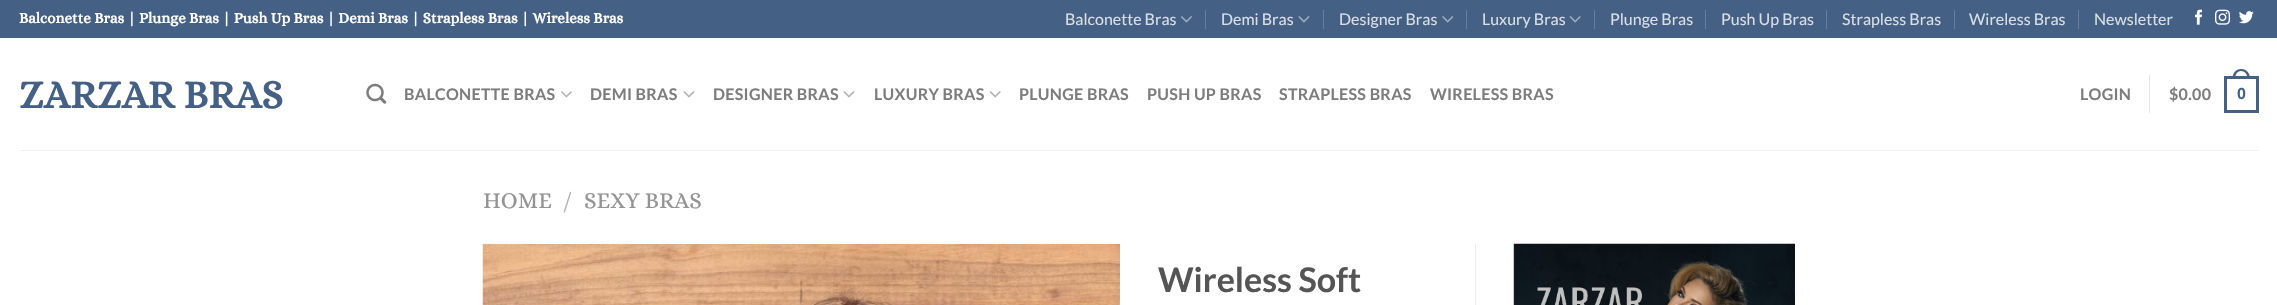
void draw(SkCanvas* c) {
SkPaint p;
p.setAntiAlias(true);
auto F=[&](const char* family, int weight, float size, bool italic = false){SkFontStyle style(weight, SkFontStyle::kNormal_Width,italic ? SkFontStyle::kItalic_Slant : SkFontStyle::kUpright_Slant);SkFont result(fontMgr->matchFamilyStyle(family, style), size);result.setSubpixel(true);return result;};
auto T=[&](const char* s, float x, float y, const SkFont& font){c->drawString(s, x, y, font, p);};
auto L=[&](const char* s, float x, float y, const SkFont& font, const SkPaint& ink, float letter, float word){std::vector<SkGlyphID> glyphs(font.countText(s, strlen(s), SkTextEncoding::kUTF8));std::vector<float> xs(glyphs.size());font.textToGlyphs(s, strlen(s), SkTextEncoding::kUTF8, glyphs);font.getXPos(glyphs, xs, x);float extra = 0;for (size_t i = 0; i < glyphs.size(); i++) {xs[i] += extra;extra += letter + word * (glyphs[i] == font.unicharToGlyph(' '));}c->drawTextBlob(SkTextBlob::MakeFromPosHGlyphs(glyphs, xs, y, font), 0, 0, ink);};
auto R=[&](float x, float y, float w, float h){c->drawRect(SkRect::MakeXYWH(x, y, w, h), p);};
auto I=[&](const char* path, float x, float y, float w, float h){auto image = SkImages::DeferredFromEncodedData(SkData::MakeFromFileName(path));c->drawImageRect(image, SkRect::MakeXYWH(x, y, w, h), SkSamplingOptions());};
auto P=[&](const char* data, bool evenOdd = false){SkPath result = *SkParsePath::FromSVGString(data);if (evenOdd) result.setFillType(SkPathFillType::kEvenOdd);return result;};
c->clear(0xffffffff);
p.setColor(0xff446084);
R(0,0,2277,38);
auto f1 = F("Alice",700,15);
p.setColor(0xffffffff);
T("Balconette Bras | Plunge Bras | Push Up Bras | Demi Bras | Strapless Bras | Wireless Bras",19,23,f1);
auto f2 = F("Lato",400,16);
p.setColor(0xffdadfe6);
T("Balconette Bras",1065,25,f2);
I("1.png",1181,16,11,7);
p.setColor(0xff69809d);
R(1205,10,1,19);
p.setColor(0xffdadfe6);
T("Demi Bras",1221,25,f2);
I("2.png",1298,16,12,7);
p.setColor(0xff69809d);
R(1323,10,1,19);
p.setColor(0xffdadfe6);
T("Designer Bras",1339,25,f2);
I("3.png",1442,16,12,7);
p.setColor(0xff69809d);
R(1466,10,1,19);
p.setColor(0xffdadfe6);
T("Luxury Bras",1482,25,f2);
I("4.png",1569,16,12,7);
p.setColor(0xff69809d);
R(1594,10,1,19);
p.setColor(0xffdadfe6);
T("Plunge Bras",1610,25,f2);
p.setColor(0xff69809d);
R(1705,10,1,19);
p.setColor(0xffdadfe6);
T("Push Up Bras",1721,25,f2);
p.setColor(0xff69809d);
R(1826,10,1,19);
p.setColor(0xffdadfe6);
T("Strapless Bras",1842,25,f2);
p.setColor(0xff69809d);
R(1954,10,1,19);
p.setColor(0xffdadfe6);
T("Wireless Bras",1969,25,f2);
p.setColor(0xff69809d);
R(2078,10,1,19);
p.setColor(0xffdadfe6);
T("Newsletter",2094,25,f2);
I("5.png",2195,9,7,16);
I("6.png",2215,9,15,16);
I("7.png",2239,11,15,13);
auto f3 = F("Alice",700,40);
p.setColor(0xff446084);
T("ZARZAR BRAS",19,108,f3);
I("8.png",366,83,21,21);
auto f4 = F("Lato",700,16);
p.setColor(0xff7d7d7d);
L("BALCONETTE BRAS",404,100,f4,p,.3,0);
I("9.png",561,91,11,7);
L("DEMI BRAS",590,100,f4,p,.3,0);
I("10.png",683,91,12,7);
L("DESIGNER BRAS",713,100,f4,p,.3,0);
I("10.png",843,91,12,7);
L("LUXURY BRAS",874,100,f4,p,.3,0);
I("11.png",989,91,12,7);
L("PLUNGE BRAS",1019,100,f4,p,.3,0);
L("PUSH UP BRAS",1147,100,f4,p,.3,0);
L("STRAPLESS BRAS",1279,100,f4,p,.3,0);
L("WIRELESS BRAS",1430,100,f4,p,.3,0);
L("LOGIN",2080,100,f4,p,.3,0);
p.setColor(0xffe6e6e6);
R(2149,75,1,38);
p.setColor(0xff7d7d7d);
L("$0.00",2169,100,f4,p,.3,0);
p.setStroke(true);
p.setStrokeWidth(3);
p.setColor(0xff446084);
c->drawRect(SkRect::MakeXYWH(2225.5,77.5,32,34),p);
p.setStroke(false);
c->drawPath(P("M2241 69c6 0 9 4.5 9 10h-17.5c0-5.5 3-10 8.5-10zm0 2c4.5 0 6.5 4 6.5 8h-12.5c0-4 2-8 6-8z",true),p);
auto f5 = F("Liberation Sans",700,16);
L("0",2237,99,f5,p,.3,0);
p.setColor(0xfff1f1f1);
R(19,150,2240,1);
auto f6 = F("Alice",400,23);
p.setColor(0xff949494);
T("HOME",483,208,f6);
p.setColor(0xffb2b2b2);
T("/",563,208,f6);
p.setColor(0xff949494);
T("SEXY BRAS",584,208,f6);
I("12.png",482,243,638,62);
p.setColor(0xffececec);
R(1475,244,1,61);
auto f7 = F("Lato",700,34);
p.setColor(0xff555555);
T("Wireless Soft",1158,292,f7);
I("13.png",1513,243,282,62);
}
